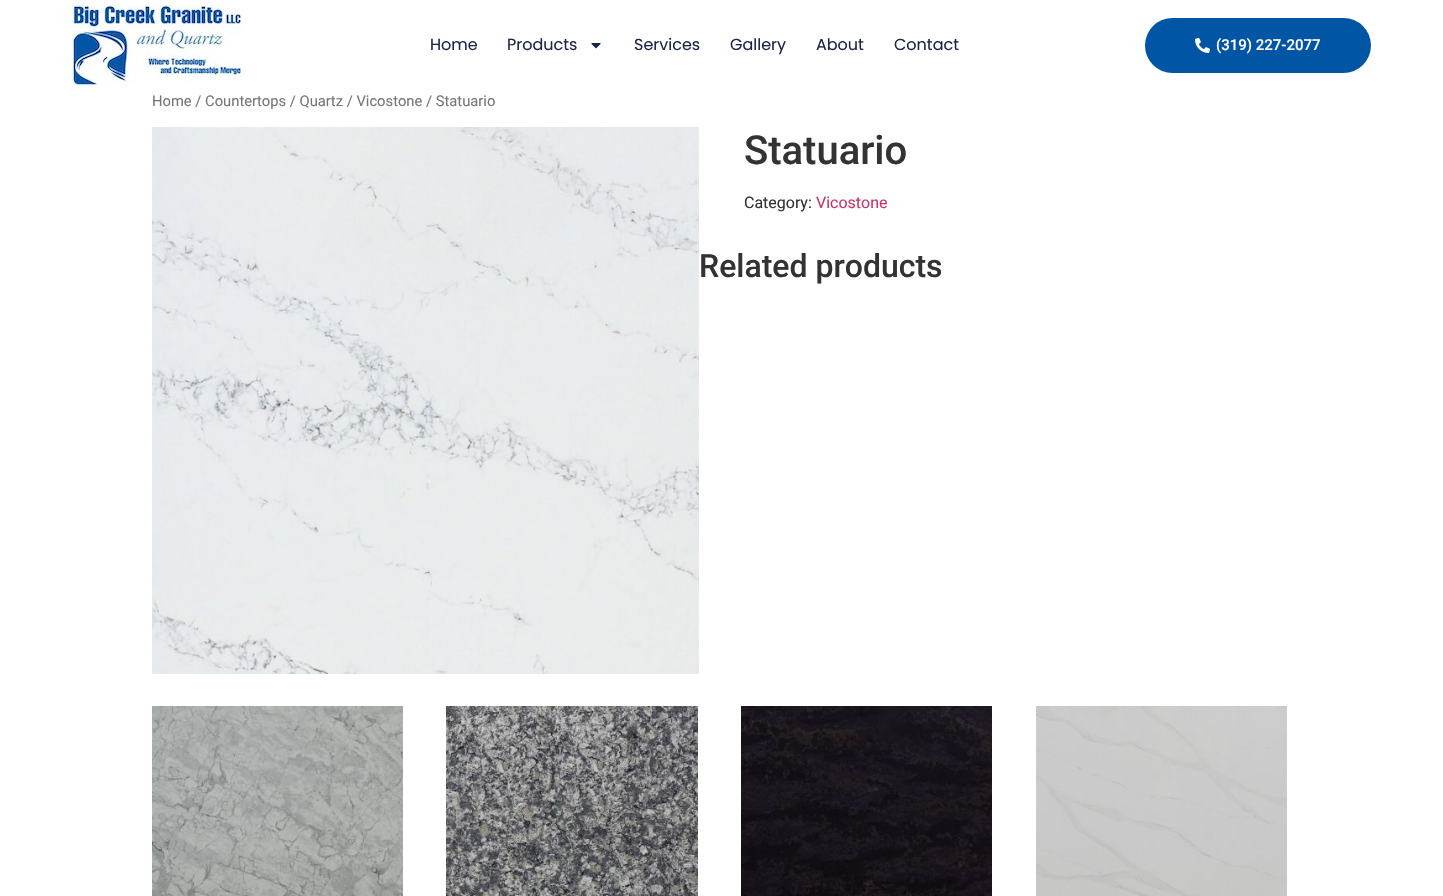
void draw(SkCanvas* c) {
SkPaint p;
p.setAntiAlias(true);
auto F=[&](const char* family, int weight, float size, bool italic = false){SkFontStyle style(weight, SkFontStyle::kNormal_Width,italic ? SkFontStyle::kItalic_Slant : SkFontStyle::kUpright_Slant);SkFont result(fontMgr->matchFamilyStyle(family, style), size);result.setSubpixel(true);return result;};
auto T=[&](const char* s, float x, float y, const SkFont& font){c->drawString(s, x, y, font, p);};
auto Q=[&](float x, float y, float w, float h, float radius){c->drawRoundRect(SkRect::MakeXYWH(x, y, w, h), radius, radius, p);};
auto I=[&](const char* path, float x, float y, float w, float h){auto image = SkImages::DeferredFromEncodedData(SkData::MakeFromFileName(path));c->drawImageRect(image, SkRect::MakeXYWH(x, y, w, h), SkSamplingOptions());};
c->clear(0xffffffff);
I("1.png",72,5,171,80);
auto f1 = F("Poppins",400,16);
p.setColor(0xff1c244b);
T("Home",430,50,f1);
T("Products",507,50,f1);
I("2.png",591,43,10,6);
T("Services",634,50,f1);
T("Gallery",730,50,f1);
T("About",816,50,f1);
T("Contact",894,50,f1);
p.setColor(0xff0155a5);
Q(1145,18,226,55,27.5);
I("3.png",1195,38,15,15);
auto f2 = F("Roboto",500,15);
p.setColor(0xffffffff);
T("(319) 227-2077",1216,50,f2);
auto f3 = F("Roboto",400,14.75);
p.setColor(0xff767676);
T("Home / Countertops / Quartz / Vicostone / Statuario",152,106,f3);
I("4.png",152,127,547,547);
auto f4 = F("Roboto",500,40);
p.setColor(0xff333333);
T("Statuario",744,164,f4);
auto f5 = F("Roboto",400,16);
T("Category:",744,208,f5);
p.setColor(0xffcc3366);
T("Vicostone",816,208,f5);
auto f6 = F("Roboto",500,32);
p.setColor(0xff333333);
T("Related products",699,277,f6);
I("5.png",152,706,251,190);
I("6.png",446,706,252,190);
I("7.png",741,706,251,190);
I("8.png",1036,706,251,190);
}
